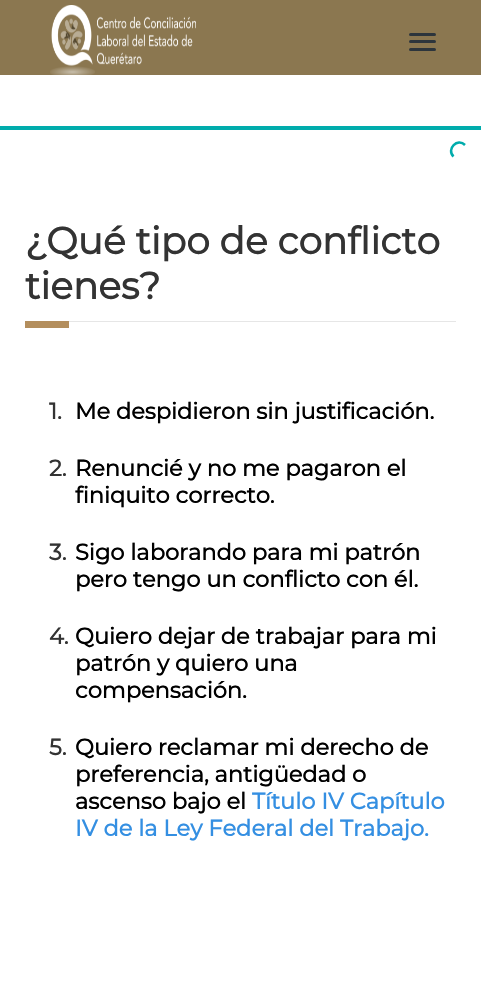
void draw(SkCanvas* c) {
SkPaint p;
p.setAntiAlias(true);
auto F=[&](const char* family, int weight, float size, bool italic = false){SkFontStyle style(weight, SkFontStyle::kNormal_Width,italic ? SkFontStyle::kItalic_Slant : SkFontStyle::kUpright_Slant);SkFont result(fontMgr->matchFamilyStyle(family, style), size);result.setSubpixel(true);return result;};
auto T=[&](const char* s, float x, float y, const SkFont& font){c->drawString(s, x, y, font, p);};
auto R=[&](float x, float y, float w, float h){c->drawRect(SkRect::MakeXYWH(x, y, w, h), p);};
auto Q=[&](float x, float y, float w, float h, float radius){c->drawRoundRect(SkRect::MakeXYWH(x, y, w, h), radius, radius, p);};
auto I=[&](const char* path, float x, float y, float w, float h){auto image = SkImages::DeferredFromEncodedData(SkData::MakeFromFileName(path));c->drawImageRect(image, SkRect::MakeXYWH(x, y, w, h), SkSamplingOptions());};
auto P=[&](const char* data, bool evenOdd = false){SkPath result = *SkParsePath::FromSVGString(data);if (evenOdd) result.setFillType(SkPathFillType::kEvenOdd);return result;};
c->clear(0xffffffff);
p.setColor(0xff00acac);
R(0,126,481,4);
p.setStroke(true);
p.setStrokeWidth(2.5);
c->drawPath(P("M453.5 156.5c-7.5-7.5 4-19 11.5-11.5"),p);
p.setStroke(false);
p.setColor(0xff8b7750);
R(0,0,481,75);
I("1.png",50,5,146,70);
p.setColor(0xff2d353c);
Q(409,33,27,3,1.5);
Q(409,40,27,3,1.5);
Q(409,48,27,3,1.5);
auto f1 = F("Montserrat",700,37.5);
p.setColor(0xff333333);
T("¿Qué tipo de conflicto",25,254,f1);
T("tienes?",25,299,f1);
p.setColor(0xffe6e6e6);
R(69,321,387,1);
p.setColor(0xffb38e5d);
R(25,321,44,7);
auto f2 = F("Montserrat",700,22.5);
p.setColor(0xff333333);
T("1.",49,419,f2);
p.setColor(0xff000000);
T("Me despidieron sin justificación.",75,419,f2);
p.setColor(0xff333333);
T("2.",49,476,f2);
p.setColor(0xff000000);
T("Renuncié y no me pagaron el",75,476,f2);
T("finiquito correcto.",75,503,f2);
p.setColor(0xff333333);
T("3.",49,560,f2);
p.setColor(0xff000000);
T("Sigo laborando para mi patrón",75,560,f2);
T("pero tengo un conflicto con él.",75,587,f2);
p.setColor(0xff333333);
T("4.",49,644,f2);
p.setColor(0xff000000);
T("Quiero dejar de trabajar para mi",75,644,f2);
T("patrón y quiero una",75,671,f2);
T("compensación.",75,698,f2);
p.setColor(0xff333333);
T("5.",49,755,f2);
p.setColor(0xff000000);
T("Quiero reclamar mi derecho de",75,755,f2);
T("preferencia, antigüedad o",75,782,f2);
T("ascenso bajo el",75,809,f2);
p.setColor(0xff348fe2);
T("Título IV Capítulo",252,809,f2);
T("IV de la Ley Federal del Trabajo.",75,836,f2);
}
